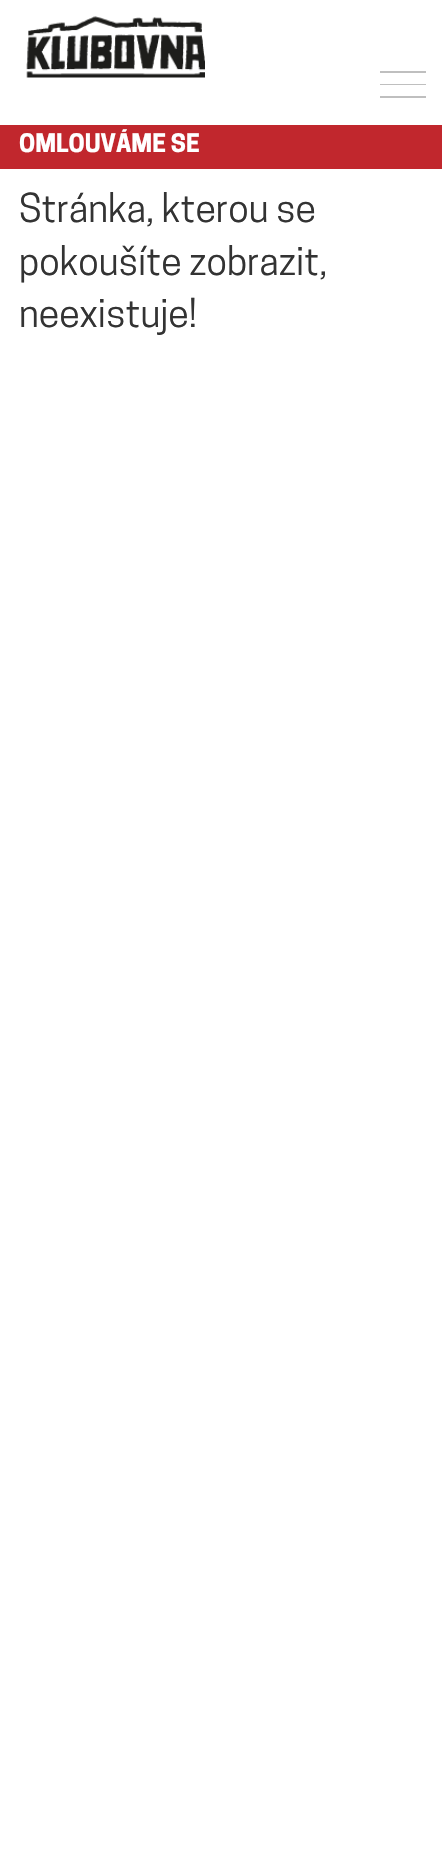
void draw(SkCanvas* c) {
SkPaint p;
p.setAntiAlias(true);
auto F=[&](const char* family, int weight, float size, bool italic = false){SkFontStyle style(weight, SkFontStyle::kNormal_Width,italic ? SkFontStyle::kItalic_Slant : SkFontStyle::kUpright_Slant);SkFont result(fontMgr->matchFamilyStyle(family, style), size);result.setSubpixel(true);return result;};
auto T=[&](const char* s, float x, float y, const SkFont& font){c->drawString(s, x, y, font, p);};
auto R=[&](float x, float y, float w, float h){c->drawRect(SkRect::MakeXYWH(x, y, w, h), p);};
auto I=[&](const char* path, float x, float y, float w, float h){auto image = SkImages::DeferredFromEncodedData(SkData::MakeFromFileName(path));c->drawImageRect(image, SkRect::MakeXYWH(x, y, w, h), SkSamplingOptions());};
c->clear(0xffffffff);
I("1.png",26,16,179,62);
p.setColor(0xffbfbfbf);
R(380,71,46,2);
R(380,84,46,1);
R(380,96,46,2);
p.setColor(0xffc1272d);
R(0,125,442,44);
auto f1 = F("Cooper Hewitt",700,24);
p.setColor(0xffffffff);
T("OMLOUVÁME SE",19,152,f1);
auto f2 = F("Cooper Hewitt",400,37.5);
p.setColor(0xff333333);
T("Stránka, kterou se",19,222,f2);
T("pokoušíte zobrazit,",19,275,f2);
T("neexistuje!",19,327,f2);
}
